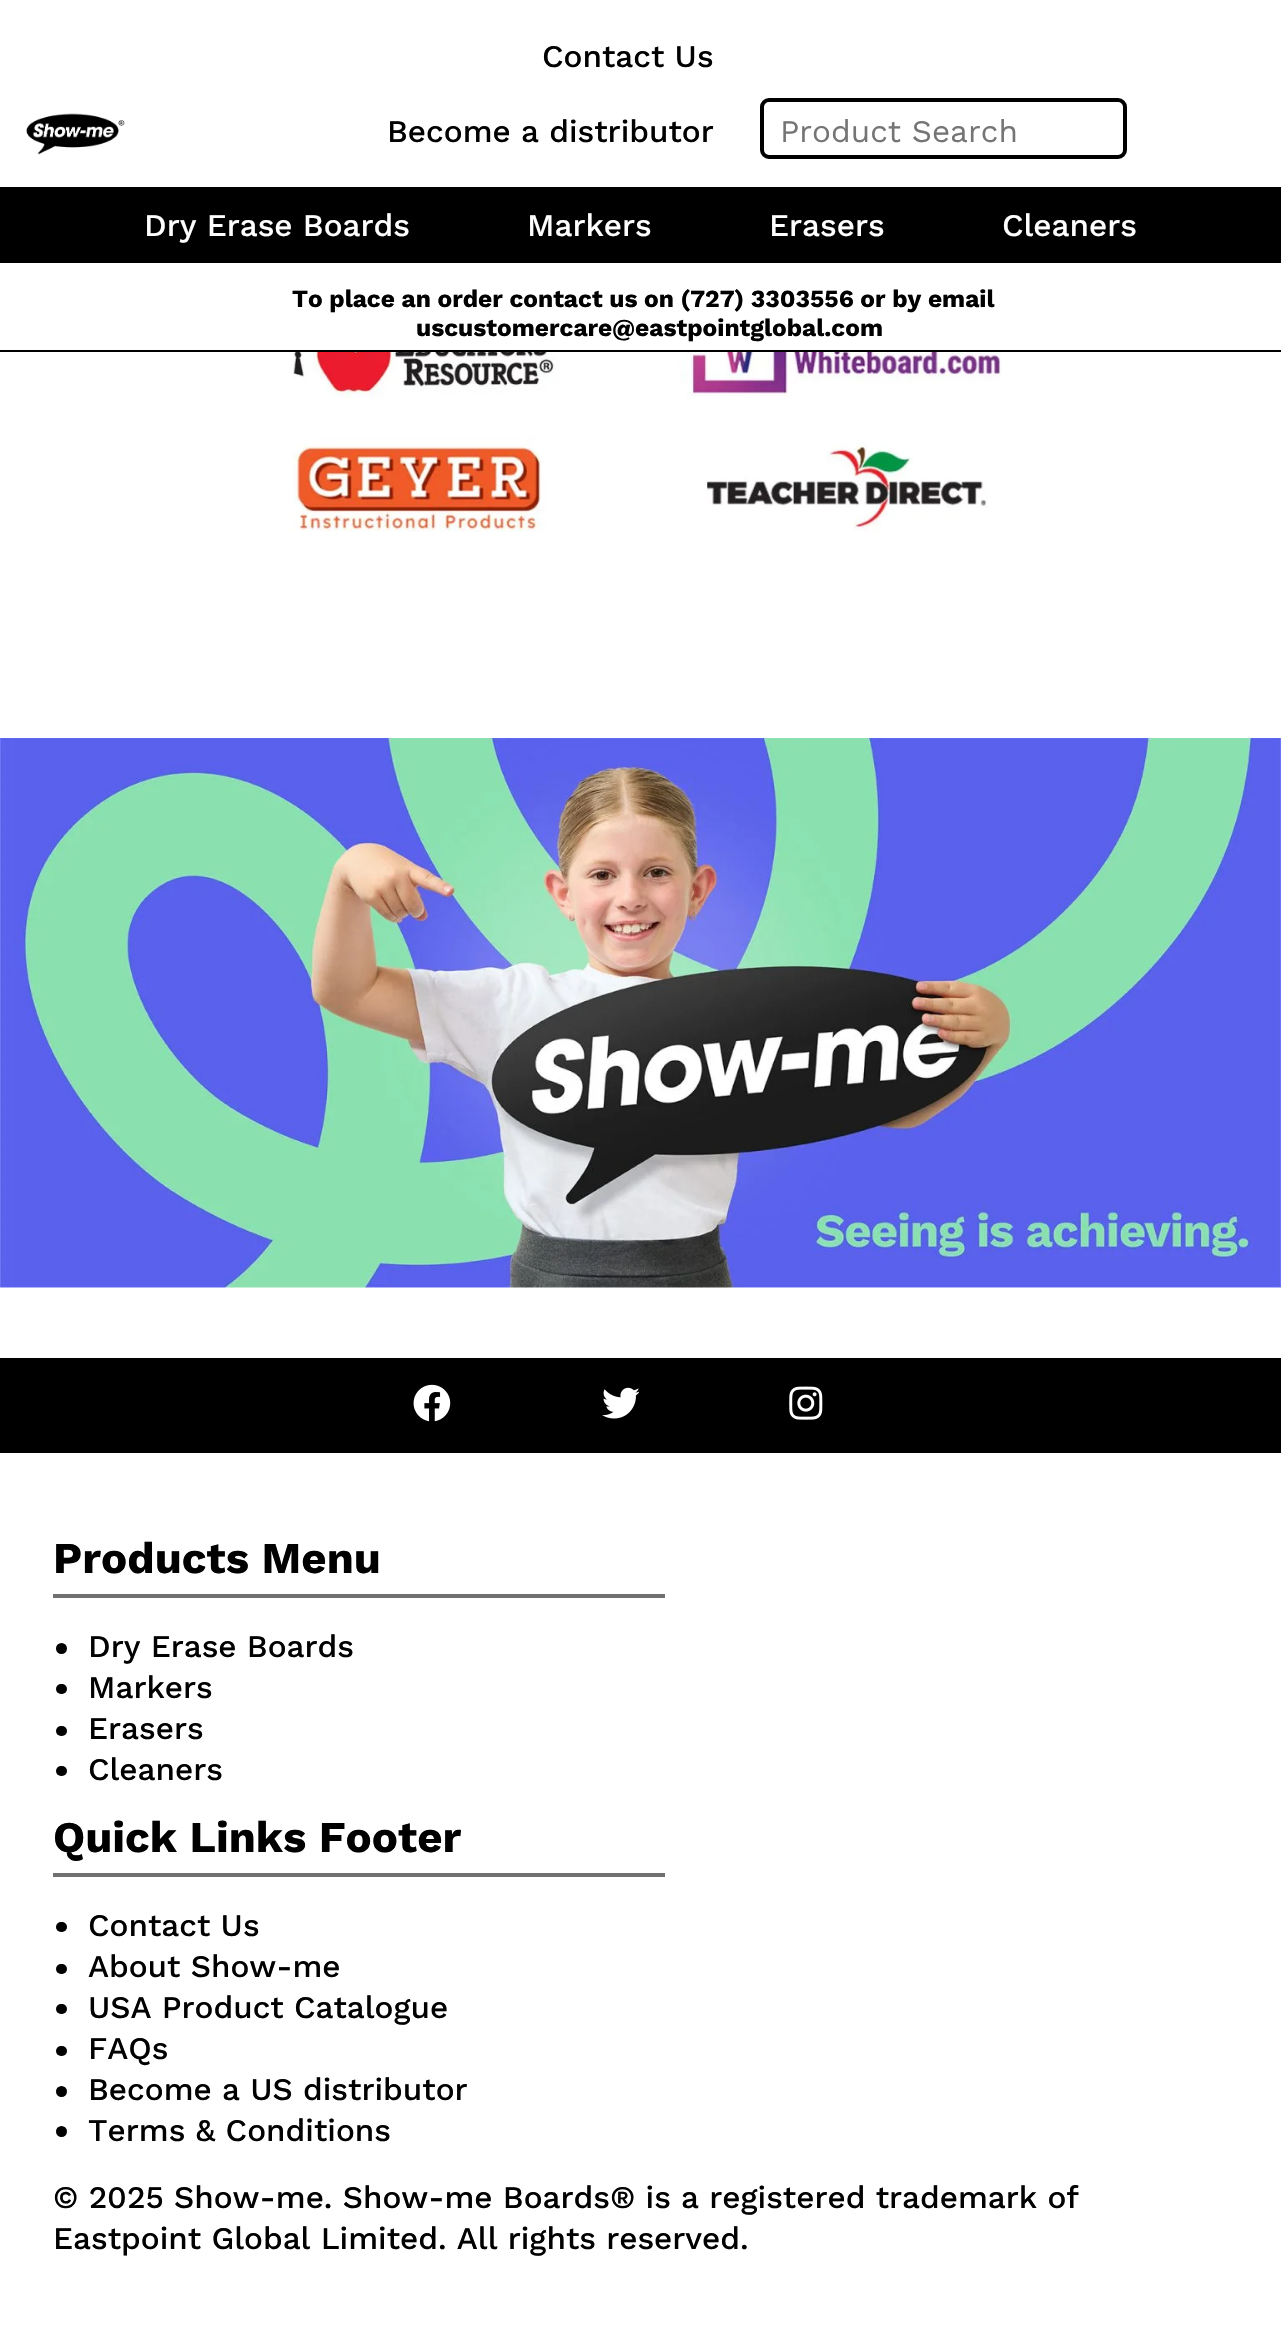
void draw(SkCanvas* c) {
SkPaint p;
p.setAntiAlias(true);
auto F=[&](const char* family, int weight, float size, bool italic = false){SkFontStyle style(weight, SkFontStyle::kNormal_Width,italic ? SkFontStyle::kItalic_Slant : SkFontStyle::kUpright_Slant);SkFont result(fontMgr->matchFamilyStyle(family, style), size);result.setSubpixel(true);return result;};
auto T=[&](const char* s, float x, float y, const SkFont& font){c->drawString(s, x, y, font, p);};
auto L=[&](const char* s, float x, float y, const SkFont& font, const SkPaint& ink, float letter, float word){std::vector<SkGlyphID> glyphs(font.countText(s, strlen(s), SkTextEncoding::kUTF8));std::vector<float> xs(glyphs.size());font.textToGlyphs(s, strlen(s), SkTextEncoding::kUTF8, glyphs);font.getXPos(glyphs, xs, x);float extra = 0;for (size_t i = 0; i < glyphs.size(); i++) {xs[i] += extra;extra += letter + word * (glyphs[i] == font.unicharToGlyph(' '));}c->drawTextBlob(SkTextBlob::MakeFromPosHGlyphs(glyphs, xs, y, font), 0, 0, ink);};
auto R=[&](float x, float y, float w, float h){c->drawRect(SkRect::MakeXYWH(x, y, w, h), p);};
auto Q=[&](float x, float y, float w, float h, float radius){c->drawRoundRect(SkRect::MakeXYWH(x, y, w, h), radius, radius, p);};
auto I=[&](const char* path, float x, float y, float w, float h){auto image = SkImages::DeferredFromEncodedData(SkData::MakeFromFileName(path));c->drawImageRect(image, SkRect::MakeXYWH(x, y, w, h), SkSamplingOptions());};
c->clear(0xffffffff);
I("1.png",26,113,99,42);
auto f1 = F("Work Sans",500,31.5);
p.setColor(0xff000000);
T("Contact Us",542,67,f1);
T("Become a distributor",387,142,f1);
p.setStroke(true);
p.setStrokeWidth(4);
c->drawRoundRect(SkRect::MakeXYWH(762,100,363,57),7,7,p);
auto f2 = F("Work Sans",400,31.5);
p.setStroke(false);
p.setColor(0xff757575);
T("Product Search",780,142,f2);
p.setColor(0xff000000);
R(0,187,1281,76);
p.setColor(0xffffffff);
T("Dry Erase Boards",144,236,f1);
T("Markers",527,236,f1);
T("Erasers",769,236,f1);
T("Cleaners",1002,236,f1);
p.setColor(0xff000000);
R(0,350,1281,2);
auto f3 = F("Work Sans",700,24.5);
L("To place an order contact us on (727) 330‑3556 or by email",292,307,f3,p,0,-.4);
T("uscustomercare@eastpointglobal.com",416,336,f3);
I("2.png",285,352,717,180);
I("3.png",0,738,1281,550);
R(0,1358,1281,95);
I("4.png",413,1384,38,38);
I("5.png",602,1387,37,32);
I("6.png",789,1386,34,34);
p.setColor(0xff707070);
R(53,1594,612,4);
auto f4 = F("Work Sans",700,43.75);
p.setColor(0xff000000);
T("Products Menu",53,1573,f4);
c->drawCircle(61.5,1648.5,5.5,p);
T("Dry Erase Boards",88,1657,f1);
Q(56,1684,11,10,5);
T("Markers",88,1698,f1);
Q(56,1726,11,10,5);
T("Erasers",88,1739,f1);
Q(56,1766,11,10,5);
T("Cleaners",88,1780,f1);
p.setColor(0xff707070);
R(53,1873,612,4);
p.setColor(0xff000000);
T("Quick Links Footer",53,1852,f4);
Q(56,1922,11,10,5);
T("Contact Us",88,1936,f1);
Q(56,1964,11,10,5);
T("About Show-me",88,1977,f1);
Q(56,2004,11,10,5);
T("USA Product Catalogue",88,2018,f1);
Q(56,2046,11,10,5);
T("FAQs",88,2059,f1);
c->drawCircle(61.5,2091.5,5.5,p);
T("Become a US distributor",88,2100,f1);
c->drawCircle(61.5,2131.5,5.5,p);
T("Terms & Conditions",88,2141,f1);
T("© 2025 Show-me. Show-me Boards® is a registered trademark of",53,2208,f1);
T("Eastpoint Global Limited. All rights reserved.",53,2249,f1);
}
